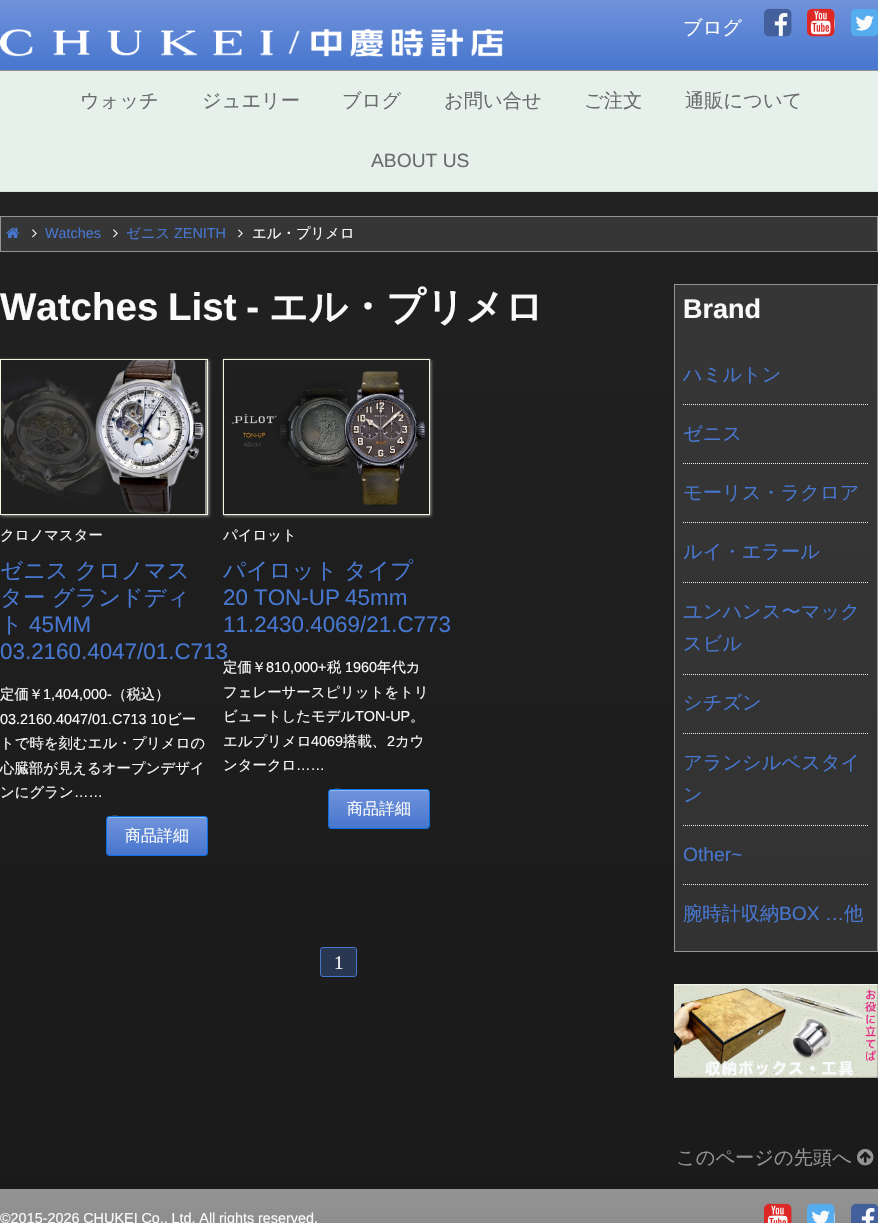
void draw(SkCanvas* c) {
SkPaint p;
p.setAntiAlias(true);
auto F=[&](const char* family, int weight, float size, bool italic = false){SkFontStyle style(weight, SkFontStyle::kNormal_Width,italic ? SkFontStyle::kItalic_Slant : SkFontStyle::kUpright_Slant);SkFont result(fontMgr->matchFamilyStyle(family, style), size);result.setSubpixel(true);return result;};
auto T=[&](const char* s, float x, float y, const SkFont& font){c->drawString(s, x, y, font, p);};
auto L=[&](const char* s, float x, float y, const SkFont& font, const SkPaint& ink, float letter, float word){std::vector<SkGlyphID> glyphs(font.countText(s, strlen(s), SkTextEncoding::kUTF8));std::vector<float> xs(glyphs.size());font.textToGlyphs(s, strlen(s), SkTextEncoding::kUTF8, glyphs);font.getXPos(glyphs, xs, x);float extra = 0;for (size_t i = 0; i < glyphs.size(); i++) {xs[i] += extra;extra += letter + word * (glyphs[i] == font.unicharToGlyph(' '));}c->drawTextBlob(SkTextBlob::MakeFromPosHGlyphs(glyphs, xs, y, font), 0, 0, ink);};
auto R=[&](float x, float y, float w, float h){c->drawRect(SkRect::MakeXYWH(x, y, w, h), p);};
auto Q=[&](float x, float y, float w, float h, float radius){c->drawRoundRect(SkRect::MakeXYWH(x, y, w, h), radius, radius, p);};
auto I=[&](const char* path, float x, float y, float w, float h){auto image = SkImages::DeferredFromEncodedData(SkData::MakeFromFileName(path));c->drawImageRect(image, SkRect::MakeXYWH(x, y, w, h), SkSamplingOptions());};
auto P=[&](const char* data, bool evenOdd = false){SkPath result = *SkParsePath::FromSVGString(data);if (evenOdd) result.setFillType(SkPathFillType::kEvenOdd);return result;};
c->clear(0xffffffff);
{
const SkColor colors[] = {0xff222222,0xff1a1a1a};
const float stops[] = {0,1};
const SkPoint ends[] = {{439,-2}, {439,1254}};
p.setShader(SkGradientShader::MakeLinear(ends, colors, stops, 2, SkTileMode::kClamp));
p.setAlpha(255);
}
R(0,192,878,997);
{
const SkColor colors[] = {0xff383838,0xff303030};
const float stops[] = {0,1};
const SkPoint ends[] = {{439,-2}, {439,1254}};
p.setShader(SkGradientShader::MakeLinear(ends, colors, stops, 2, SkTileMode::kClamp));
p.setAlpha(255);
}
R(675,285,202,666);
{
const SkColor colors[] = {0xff7193db,0xff4776ce};
const float stops[] = {0,1};
const SkPoint ends[] = {{439,-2}, {439,70}};
p.setShader(SkGradientShader::MakeLinear(ends, colors, stops, 2, SkTileMode::kClamp));
p.setAlpha(255);
}
R(0,0,878,70);
p.setShader(nullptr);
p.setColor(0xff949494);
R(0,70,878,1);
auto f1 = F("WenQuanYi Zen Hei",500,19.25);
p.setColor(0xfffafafa);
T("ブログ",683,34,f1);
Q(764,11,27,25,10);
I("1.png",764,8,28,29);
Q(807,11,28,25,10);
I("2.png",807,8,28,29);
Q(851,11,27,25,10);
I("3.png",851,9,27,28);
I("4.png",0,29,503,28);
p.setColor(0xffe7f1ec);
R(0,71,878,120);
p.setColor(0xffd4e6dd);
R(0,191,878,1);
p.setColor(0xff696c6b);
T("ウォッチ",80,107,f1);
T("ジュエリー",202,107,f1);
T("ブログ",342,107,f1);
T("お問い合せ",444,107,f1);
T("ご注文",584,107,f1);
T("通販について",685,107,f1);
auto f2 = F("Liberation Sans",400,19.25);
T("ABOUT US",371,167,f2);
p.setColor(0xff363636);
c->drawRect(SkRect::MakeXYWH(.5,216.5,877,35),p);
p.setStroke(true);
p.setStrokeWidth(1);
p.setColor(0xff949494);
c->drawRect(SkRect::MakeXYWH(.5,216.5,877,35),p);
I("5.png",6,227,14,11);
I("6.png",32,229,5,9);
auto f3 = F("Liberation Sans",400,14.4);
p.setStroke(false);
p.setColor(0xff4776ce);
T("Watches",45,238,f3);
I("6.png",113,229,5,9);
auto f4 = F("WenQuanYi Zen Hei",500,14.4);
T("ゼニス",126,238,f4);
T("ZENITH",174,238,f3);
I("6.png",238,229,5,9);
p.setColor(0xfffafafa);
T("エル・プリメロ",252,238,f4);
auto f5 = F("Liberation Sans",700,38.5);
L("Watches List -",0,320,f5,p,0,-1);
auto f6 = F("WenQuanYi Zen Hei",700,38.5);
T("エル・プリメロ",269,320,f6);
p.setColor(0xff949494);
p.setMaskFilter(SkMaskFilter::MakeBlur(kNormal_SkBlurStyle, 1.5));
c->drawRect(SkRect::MakeXYWH(1,360,208,156),p);
p.setMaskFilter(nullptr);
p.setStroke(true);
p.setColor(0xfff7f6e4);
c->drawRect(SkRect::MakeXYWH(.5,359.5,207,155),p);
I("7.png",1,360,204,154);
p.setStroke(false);
p.setColor(0xfffafafa);
T("クロノマスター",0,540,f4);
auto f7 = F("WenQuanYi Zen Hei",500,22.4);
p.setColor(0xff4776ce);
T("ゼニス",0,578,f7);
T("クロノマス",75,578,f7);
T("ター グランドディ",0,605,f7);
T("ト",0,632,f7);
auto f8 = F("Liberation Sans",400,22.4);
T("45MM",29,632,f8);
T("03.2160.4047/01.C713",0,659,f8);
p.setColor(0xfffafafa);
T("定価￥",0,699,f4);
T("1,404,000-",43,699,f3);
T("（税込）",112,699,f4);
T("03.2160.4047/01.C713 10",0,724,f3);
T("ビー",167,724,f4);
T("トで時を刻むエル・プリメロの",0,748,f4);
T("心臓部が見えるオープンデザイ",0,773,f4);
T("ンにグラン",0,797,f4);
T("……",74,797,f3);
{
const SkColor colors[] = {0xff7193db,0xff4776ce};
const float stops[] = {0,1};
const SkPoint ends[] = {{157,817}, {157,855}};
p.setShader(SkGradientShader::MakeLinear(ends, colors, stops, 2, SkTileMode::kClamp));
p.setAlpha(255);
}
Q(107,817,100,38,2);
p.setShader(nullptr);
p.setColor(0xff8ebcf1);
c->drawPath(P("M109 818h96c1 0 2 1 2 2c0-1 0-3-2-3h-80c-1 0-18-4-18 3c0-1 1-2 2-2z"),p);
p.setStroke(true);
p.setColor(0xff076fe4);
c->drawRoundRect(SkRect::MakeXYWH(106.5,816.5,101,39),2.5,2.5,p);
auto f9 = F("WenQuanYi Zen Hei",500,16);
p.setStroke(false);
p.setColor(0xfffafafa);
T("商品詳細",125,841,f9);
c->save();
c->clipPath(P("M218 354h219v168h-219zm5 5h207v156h-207z",true),true);
p.setColor(0xff949494);
p.setMaskFilter(SkMaskFilter::MakeBlur(kNormal_SkBlurStyle, 1.5));
c->drawRect(SkRect::MakeXYWH(224,360,207,156),p);
p.setMaskFilter(nullptr);
c->restore();
p.setStroke(true);
p.setColor(0xfff7f6e4);
c->drawRect(SkRect::MakeXYWH(223.5,359.5,206,155),p);
I("8.png",231,370,195,138);
p.setStroke(false);
p.setColor(0xfffafafa);
T("パイロット",223,540,f4);
p.setColor(0xff4776ce);
T("パイロット タイプ",223,578,f7);
T("20",223,605,f8);
L("TON-UP 45mm",254,605,f8,p,0,-1);
T("11.2430.4069/21.C773",223,632,f8);
p.setColor(0xfffafafa);
T("定価￥",223,672,f4);
T("810,000+",266,672,f3);
T("税",327,672,f4);
T("1960",345,672,f3);
T("年代カ",377,672,f4);
T("フェレーサースピリットをトリ",223,697,f4);
T("ビュートしたモデル",223,721,f4);
T("TON-UP",355,721,f3);
T("。",410,721,f4);
T("エルプリメロ",223,746,f4);
T("4069",311,746,f3);
T("搭載、",343,746,f4);
T("2",387,746,f3);
T("カウ",395,746,f4);
T("ンタークロ",223,770,f4);
T("……",296,770,f3);
{
const SkColor colors[] = {0xff7193db,0xff4776ce};
const float stops[] = {0,1};
const SkPoint ends[] = {{379,790}, {379,828}};
p.setShader(SkGradientShader::MakeLinear(ends, colors, stops, 2, SkTileMode::kClamp));
p.setAlpha(255);
}
Q(329,790,100,38,2);
p.setShader(nullptr);
p.setColor(0xff8ebcf1);
c->drawPath(P("M331 791h96c1 0 2 1 2 2c0-1 0-3-2-3h-80c-1 0-18-4-18 3c0-1 1-2 2-2z"),p);
p.setStroke(true);
p.setColor(0xff076fe4);
c->drawRoundRect(SkRect::MakeXYWH(328.5,789.5,101,39),2.5,2.5,p);
p.setStroke(false);
p.setColor(0xfffafafa);
T("商品詳細",347,814,f9);
p.setColor(0xff293751);
c->drawRoundRect(SkRect::MakeXYWH(320.5,947.5,36,29),2.5,2.5,p);
p.setStroke(true);
p.setColor(0xff4776ce);
c->drawRoundRect(SkRect::MakeXYWH(320.5,947.5,36,29),2.5,2.5,p);
auto f10 = F("Liberation Serif",400,19.25);
p.setStroke(false);
p.setColor(0xfffafafa);
T("1",334,969,f10);
p.setStroke(true);
p.setColor(0xff949494);
c->drawRect(SkRect::MakeXYWH(674.5,284.5,203,667),p);
auto f11 = F("Liberation Sans",700,27);
p.setStroke(false);
p.setColor(0xfffafafa);
T("Brand",683,318,f11);
p.setStroke(true);
p.setColor(0xffededed);
p.setPathEffect(SkDashPathEffect::Make({{1,1}}, 0));
c->drawPath(P("M683 404.5h186"),p);
p.setPathEffect(nullptr);
p.setStroke(false);
p.setColor(0xff4776ce);
T("ハミルトン",683,381,f1);
p.setStroke(true);
p.setColor(0xffededed);
p.setPathEffect(SkDashPathEffect::Make({{1,1}}, 0));
c->drawPath(P("M683 463.5h186"),p);
p.setPathEffect(nullptr);
p.setStroke(false);
p.setColor(0xff4776ce);
T("ゼニス",683,440,f1);
p.setStroke(true);
p.setColor(0xffededed);
p.setPathEffect(SkDashPathEffect::Make({{1,1}}, 0));
c->drawPath(P("M683 522.5h186"),p);
p.setPathEffect(nullptr);
p.setStroke(false);
p.setColor(0xff4776ce);
T("モーリス・ラクロア",683,499,f1);
p.setStroke(true);
p.setColor(0xffededed);
p.setPathEffect(SkDashPathEffect::Make({{1,1}}, 0));
c->drawPath(P("M683 582.5h186"),p);
p.setPathEffect(nullptr);
p.setStroke(false);
p.setColor(0xff4776ce);
T("ルイ・エラール",683,558,f1);
p.setStroke(true);
p.setColor(0xffededed);
p.setPathEffect(SkDashPathEffect::Make({{1,1}}, 0));
c->drawPath(P("M683 674.5h186"),p);
p.setPathEffect(nullptr);
p.setStroke(false);
p.setColor(0xff4776ce);
T("ユンハンス〜マック",683,618,f1);
T("スビル",683,650,f1);
p.setStroke(true);
p.setColor(0xffededed);
p.setPathEffect(SkDashPathEffect::Make({{1,1}}, 0));
c->drawPath(P("M683 733.5h186"),p);
p.setPathEffect(nullptr);
p.setStroke(false);
p.setColor(0xff4776ce);
T("シチズン",683,709,f1);
p.setStroke(true);
p.setColor(0xffededed);
p.setPathEffect(SkDashPathEffect::Make({{1,1}}, 0));
c->drawPath(P("M683 825.5h186"),p);
p.setPathEffect(nullptr);
p.setStroke(false);
p.setColor(0xff4776ce);
T("アランシルベスタイ",683,769,f1);
T("ン",683,801,f1);
p.setStroke(true);
p.setColor(0xffededed);
p.setPathEffect(SkDashPathEffect::Make({{1,1}}, 0));
c->drawPath(P("M683 884.5h186"),p);
p.setPathEffect(nullptr);
p.setStroke(false);
p.setColor(0xff4776ce);
T("Other~",683,861,f2);
T("腕時計収納",683,920,f1);
T("BOX …",779,920,f2);
T("他",844,920,f1);
I("9.png",674,984,204,94);
p.setColor(0xff949494);
T("このページの先頭へ",676,1164,f1);
I("10.png",857,1148,17,18);
{
const SkColor colors[] = {0xff949494,0xff878787};
const float stops[] = {0,1};
const SkPoint ends[] = {{439,1190}, {439,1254}};
p.setShader(SkGradientShader::MakeLinear(ends, colors, stops, 2, SkTileMode::kClamp));
p.setAlpha(255);
}
R(0,1190,878,33);
p.setShader(nullptr);
p.setColor(0xff949494);
R(0,1189,878,1);
p.setColor(0xfffafafa);
L("©2015-2026 CHUKEI Co., Ltd. All rights reserved.",0,1223,f3,p,0,-.25);
Q(764,1206,27,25,10);
I("11.png",764,1203,28,20);
Q(807,1206,28,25,10);
I("12.png",807,1203,28,20);
Q(851,1206,27,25,10);
I("13.png",851,1203,27,20);
}
